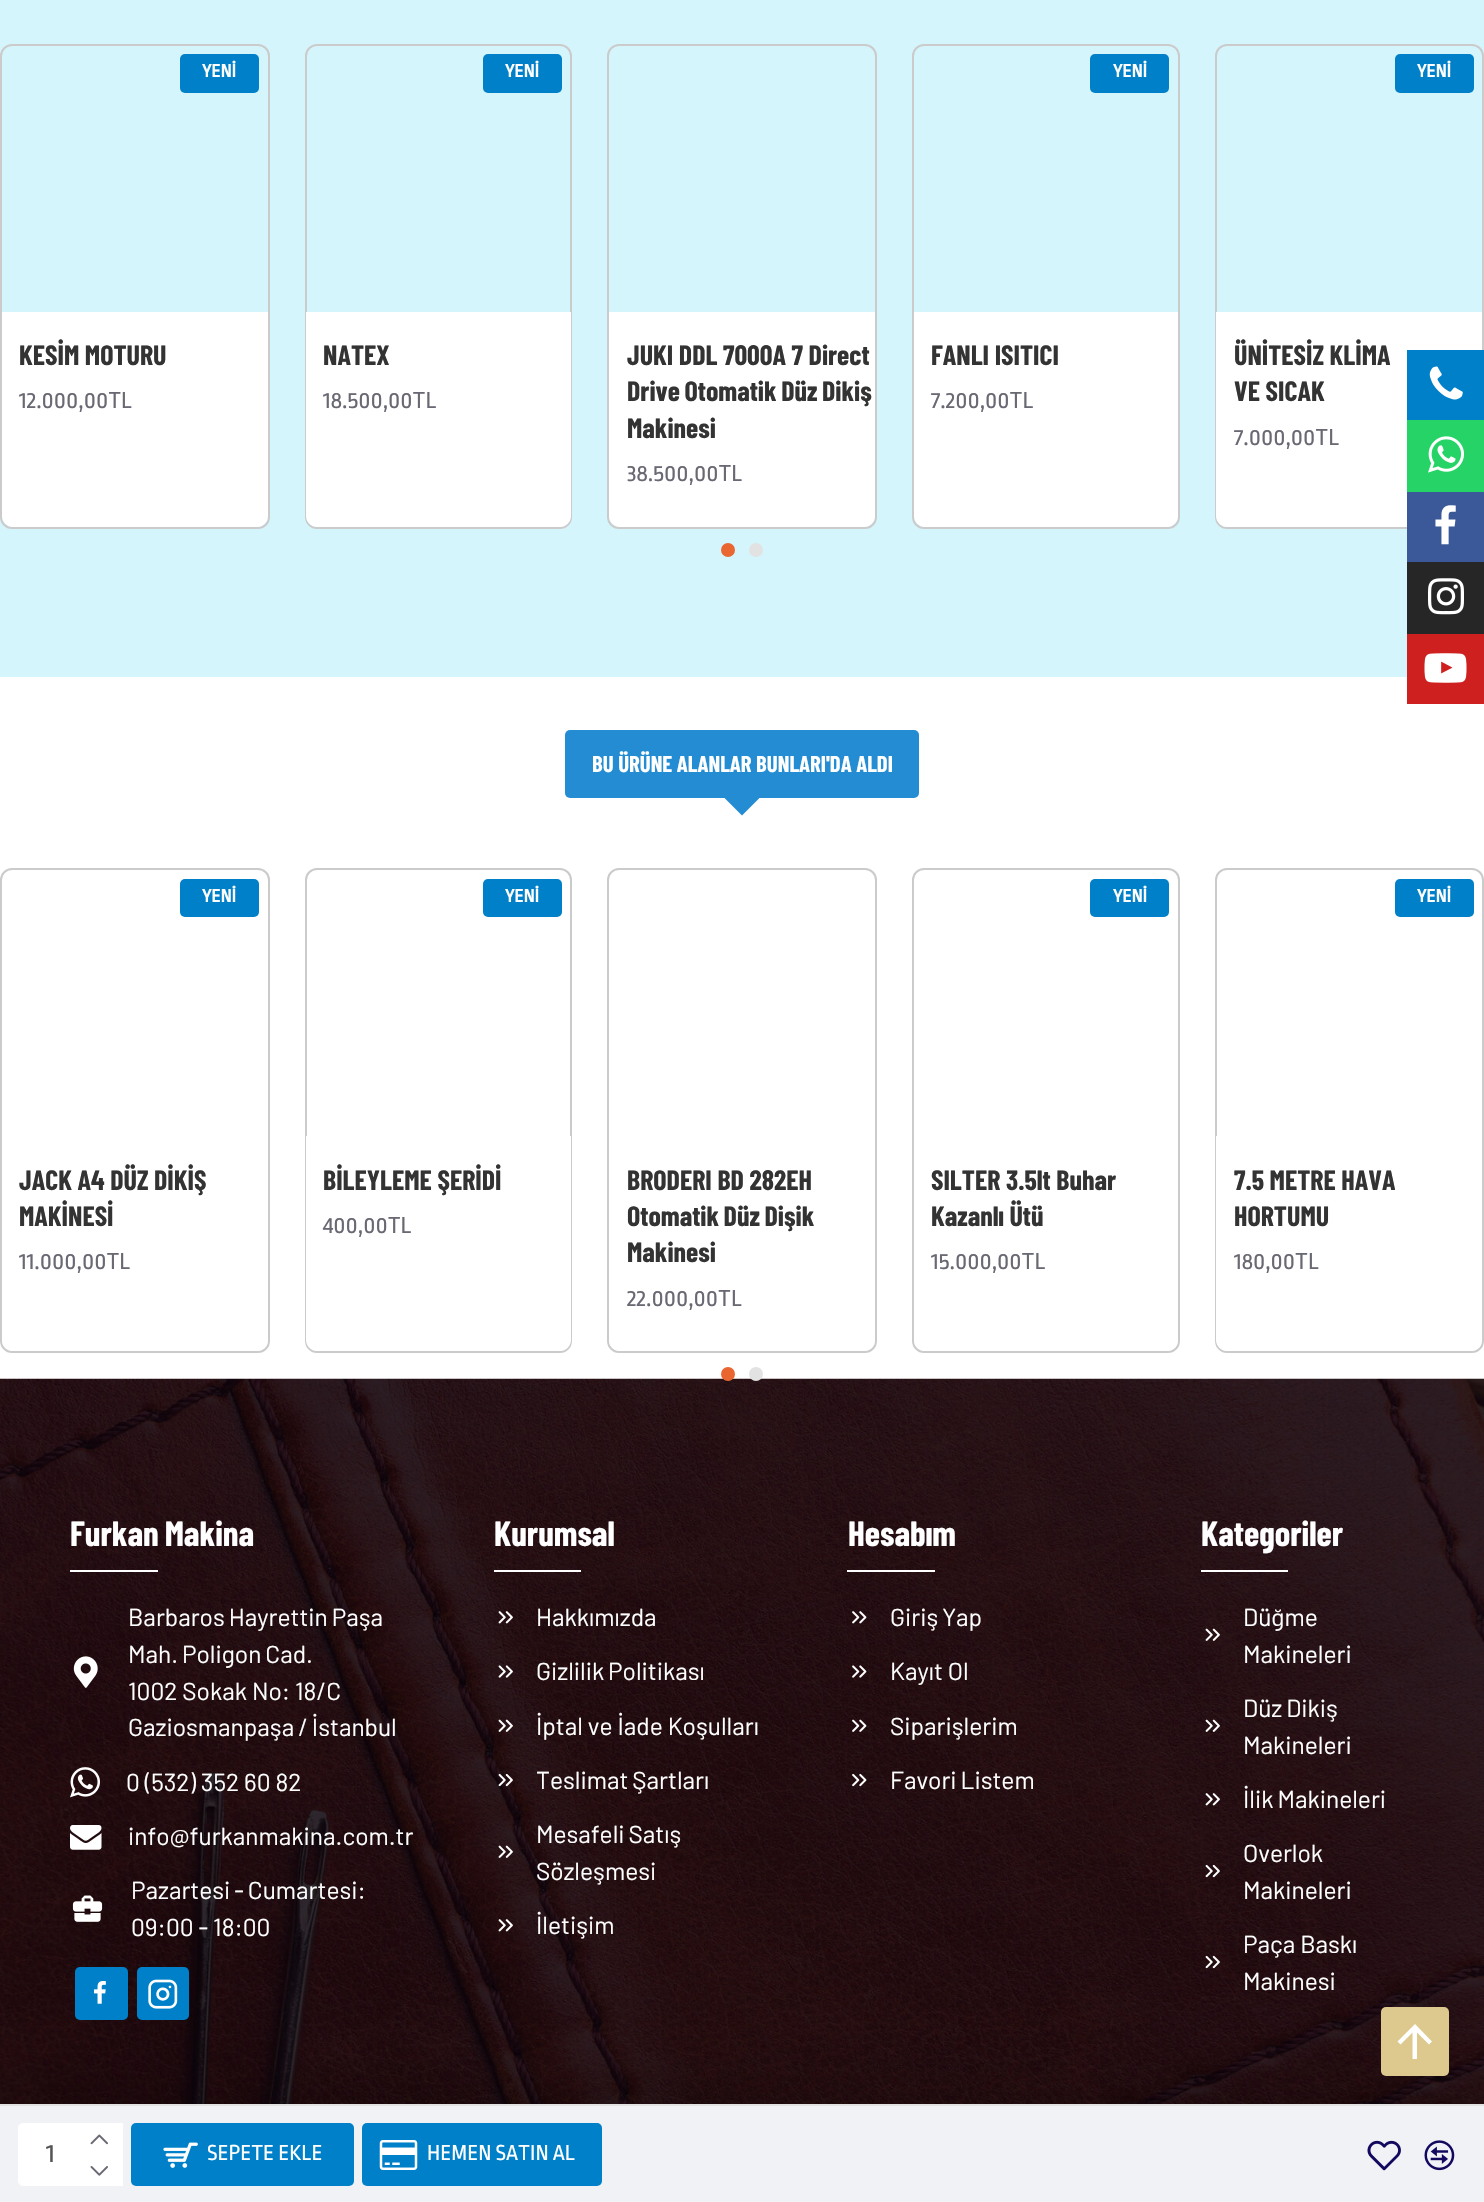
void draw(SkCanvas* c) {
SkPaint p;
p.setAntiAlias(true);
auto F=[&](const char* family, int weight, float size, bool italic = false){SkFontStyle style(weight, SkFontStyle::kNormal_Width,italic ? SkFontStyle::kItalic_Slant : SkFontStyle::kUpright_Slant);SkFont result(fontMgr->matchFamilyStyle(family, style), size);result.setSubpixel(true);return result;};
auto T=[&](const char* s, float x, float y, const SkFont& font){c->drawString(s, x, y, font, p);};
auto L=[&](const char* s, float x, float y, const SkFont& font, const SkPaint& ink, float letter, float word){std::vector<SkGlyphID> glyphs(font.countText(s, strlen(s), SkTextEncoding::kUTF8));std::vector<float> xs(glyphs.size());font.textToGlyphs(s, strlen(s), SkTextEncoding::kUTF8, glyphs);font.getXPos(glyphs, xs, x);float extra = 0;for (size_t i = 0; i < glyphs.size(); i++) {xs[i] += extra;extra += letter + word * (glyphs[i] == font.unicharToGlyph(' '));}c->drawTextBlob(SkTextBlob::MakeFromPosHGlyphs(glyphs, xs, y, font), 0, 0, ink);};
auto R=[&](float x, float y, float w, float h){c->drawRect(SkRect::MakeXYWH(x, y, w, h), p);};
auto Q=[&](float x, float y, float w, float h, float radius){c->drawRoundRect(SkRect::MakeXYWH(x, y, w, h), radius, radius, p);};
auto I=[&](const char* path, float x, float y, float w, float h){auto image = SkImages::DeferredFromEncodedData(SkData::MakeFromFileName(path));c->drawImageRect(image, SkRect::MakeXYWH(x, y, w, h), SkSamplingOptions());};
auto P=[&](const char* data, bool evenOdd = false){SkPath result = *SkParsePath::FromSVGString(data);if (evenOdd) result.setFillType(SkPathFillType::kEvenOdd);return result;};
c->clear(0xffffffff);
p.setColor(0xffd5f5fd);
R(0,0,1484,677);
p.setStroke(true);
p.setStrokeWidth(2);
p.setColor(0xffcbcbcb);
c->drawRoundRect(SkRect::MakeXYWH(1,45,268,483),11,11,p);
p.setStroke(false);
p.setColor(0xff0080c8);
Q(180,54,79,39,5);
auto f1 = F("Ropa Sans",700,19);
p.setColor(0xffffffff);
T("YENİ",202,77,f1);
c->drawPath(P("M2 312h266v204c0 6-5 11-11 11h-244c-6 0-11-5-11-11z"),p);
auto f2 = F("Barlow Condensed",700,28);
p.setColor(0xff333333);
T("KESİM MOTURU",19,365,f2);
auto f3 = F("Ropa Sans",400,24.5);
p.setColor(0xff696973);
T("12.000,00TL",19,408,f3);
p.setStroke(true);
p.setColor(0xffcbcbcb);
c->drawRoundRect(SkRect::MakeXYWH(306,45,265,483),11,11,p);
p.setStroke(false);
p.setColor(0xff0080c8);
Q(483,54,79,39,5);
p.setColor(0xffffffff);
T("YENİ",505,77,f1);
c->drawPath(P("M306 312h265v204c0 6-5 11-11 11h-243c-6 0-11-5-11-11z"),p);
p.setColor(0xff333333);
T("NATEX",323,365,f2);
p.setColor(0xff696973);
T("18.500,00TL",323,408,f3);
p.setStroke(true);
p.setColor(0xffcbcbcb);
c->drawRoundRect(SkRect::MakeXYWH(608,45,268,483),11,11,p);
p.setStroke(false);
p.setColor(0xffffffff);
c->drawPath(P("M609 312h266v204c0 6-5 11-11 11h-244c-6 0-11-5-11-11z"),p);
p.setColor(0xff333333);
T("JUKI DDL 7000A 7 Direct",627,365,f2);
L("Drive Otomatik Düz Dikiş",627,401,f2,p,0,-1);
T("Makinesi",627,438,f2);
p.setColor(0xff696973);
T("38.500,00TL",627,481,f3);
p.setStroke(true);
p.setColor(0xffcbcbcb);
c->drawRoundRect(SkRect::MakeXYWH(913,45,266,483),11,11,p);
p.setStroke(false);
p.setColor(0xff0080c8);
Q(1090,54,79,39,5);
p.setColor(0xffffffff);
T("YENİ",1113,77,f1);
c->drawPath(P("M914 312h264v204c0 6-5 11-11 11h-242c-6 0-11-5-11-11z"),p);
p.setColor(0xff333333);
T("FANLI ISITICI",931,365,f2);
p.setColor(0xff696973);
T("7.200,00TL",931,408,f3);
p.setStroke(true);
p.setColor(0xffcbcbcb);
c->drawRoundRect(SkRect::MakeXYWH(1216,45,267,483),11,11,p);
p.setStroke(false);
p.setColor(0xff0080c8);
Q(1395,54,79,39,5);
p.setColor(0xffffffff);
T("YENİ",1417,77,f1);
c->drawPath(P("M1216 312h266v204c0 6-5 11-11 11h-244c-6 0-11-5-11-11z"),p);
p.setColor(0xff333333);
T("ÜNİTESİZ KLİMA",1234,365,f2);
T("VE SICAK",1234,401,f2);
p.setColor(0xff696973);
T("7.000,00TL",1234,445,f3);
p.setColor(0xffe96631);
c->drawCircle(728,550,7,p);
p.setColor(0xffe2e2e2);
c->drawCircle(756,550,7,p);
p.setColor(0xff238cd2);
Q(565,730,354,68,5);
auto f4 = F("Barlow Condensed",700,22.75);
p.setColor(0xffffffff);
T("BU ÜRÜNE ALANLAR BUNLARI'DA ALDI",592,772,f4);
p.setColor(0xff238cd2);
c->drawPath(P("M724.5 798h35l-17.5 17.5z"),p);
p.setStroke(true);
p.setColor(0xffcbcbcb);
c->drawRoundRect(SkRect::MakeXYWH(1,869,268,483),11,11,p);
p.setStroke(false);
p.setColor(0xff0080c8);
Q(180,879,79,38,5);
p.setColor(0xffffffff);
T("YENİ",202,902,f1);
c->drawPath(P("M2 1136h266v204c0 6-5 11-11 11h-244c-6 0-11-5-11-11z"),p);
p.setColor(0xff333333);
T("JACK A4 DÜZ DİKİŞ",19,1190,f2);
T("MAKİNESİ",19,1226,f2);
p.setColor(0xff696973);
T("11.000,00TL",19,1269,f3);
p.setStroke(true);
p.setColor(0xffcbcbcb);
c->drawRoundRect(SkRect::MakeXYWH(306,869,265,483),11,11,p);
p.setStroke(false);
p.setColor(0xff0080c8);
Q(483,879,79,38,5);
p.setColor(0xffffffff);
T("YENİ",505,902,f1);
c->drawPath(P("M306 1136h265v204c0 6-5 11-11 11h-243c-6 0-11-5-11-11z"),p);
p.setColor(0xff333333);
T("BİLEYLEME ŞERİDİ",323,1190,f2);
p.setColor(0xff696973);
T("400,00TL",323,1233,f3);
p.setStroke(true);
p.setColor(0xffcbcbcb);
c->drawRoundRect(SkRect::MakeXYWH(608,869,268,483),11,11,p);
p.setStroke(false);
p.setColor(0xffffffff);
c->drawPath(P("M609 1136h266v204c0 6-5 11-11 11h-244c-6 0-11-5-11-11z"),p);
p.setColor(0xff333333);
T("BRODERI BD 282EH",627,1190,f2);
L("Otomatik Düz Dişik",627,1226,f2,p,0,-1);
T("Makinesi",627,1262,f2);
p.setColor(0xff696973);
T("22.000,00TL",627,1306,f3);
p.setStroke(true);
p.setColor(0xffcbcbcb);
c->drawRoundRect(SkRect::MakeXYWH(913,869,266,483),11,11,p);
p.setStroke(false);
p.setColor(0xff0080c8);
Q(1090,879,79,38,5);
p.setColor(0xffffffff);
T("YENİ",1113,902,f1);
c->drawPath(P("M914 1136h264v204c0 6-5 11-11 11h-242c-6 0-11-5-11-11z"),p);
p.setColor(0xff333333);
T("SILTER 3.5lt Buhar",931,1190,f2);
T("Kazanlı Ütü",931,1226,f2);
p.setColor(0xff696973);
T("15.000,00TL",931,1269,f3);
p.setStroke(true);
p.setColor(0xffcbcbcb);
c->drawRoundRect(SkRect::MakeXYWH(1216,869,267,483),11,11,p);
p.setStroke(false);
p.setColor(0xff0080c8);
Q(1395,879,79,38,5);
p.setColor(0xffffffff);
T("YENİ",1417,902,f1);
c->drawPath(P("M1216 1136h266v204c0 6-5 11-11 11h-244c-6 0-11-5-11-11z"),p);
p.setColor(0xff333333);
T("7.5 METRE HAVA",1234,1190,f2);
T("HORTUMU",1234,1226,f2);
p.setColor(0xff696973);
T("180,00TL",1234,1269,f3);
I("1.png",0,1378,1484,726);
p.setColor(0xffe96631);
c->drawCircle(728,1374,7,p);
p.setColor(0xffe2e2e2);
c->drawCircle(756,1374,7,p);
auto f5 = F("Barlow Condensed",700,35);
p.setColor(0xffffffff);
L("Furkan Makina",70,1546,f5,p,0,-1);
R(70,1570,88,2);
I("2.png",73,1656,25,32);
auto f6 = F("Barlow",400,24.5);
L("Barbaros Hayrettin Paşa",128,1626,f6,p,0,-1);
L("Mah. Poligon Cad.",128,1663,f6,p,0,-1);
T("1002 Sokak No: 18/C",128,1700,f6);
L("Gaziosmanpaşa / İstanbul",128,1736,f6,p,0,-1);
I("3.png",70,1767,30,31);
T("0 (532) 352 60 82",126,1791,f6);
I("4.png",70,1825,32,25);
T("info@furkanmakina.com.tr",128,1845,f6);
I("5.png",72,1895,31,27);
L("Pazartesi - Cumartesi:",131,1899,f6,p,0,-1);
T("09:00 - 18:00",131,1936,f6);
p.setColor(0xff0080c8);
Q(75,1967,53,53,5);
I("6.png",94,1981,12,23);
Q(137,1967,52,53,5);
I("7.png",148,1979,30,30);
p.setColor(0xffffffff);
T("Kurumsal",494,1546,f5);
R(494,1570,87,2);
I("8.png",498,1611,15,13);
T("Hakkımızda",536,1626,f6);
I("9.png",498,1665,15,13);
L("Gizlilik Politikası",536,1680,f6,p,0,-1);
I("10.png",498,1719,15,13);
T("İptal ve İade Koşulları",536,1735,f6);
I("11.png",498,1773,15,14);
L("Teslimat Şartları",536,1789,f6,p,0,-1);
I("12.png",498,1845,15,13);
L("Mesafeli Satış",536,1843,f6,p,0,-1);
T("Sözleşmesi",536,1880,f6);
I("13.png",498,1919,15,13);
T("İletişim",536,1934,f6);
T("Hesabım",848,1546,f5);
R(847,1570,88,2);
I("14.png",852,1611,15,13);
L("Giriş Yap",890,1626,f6,p,0,-1);
I("15.png",852,1665,15,13);
T("Kayıt Ol",890,1680,f6);
I("16.png",852,1719,15,13);
T("Siparişlerim",890,1735,f6);
I("17.png",852,1773,15,14);
L("Favori Listem",890,1789,f6,p,0,-1);
T("Kategoriler",1201,1546,f5);
R(1201,1570,87,2);
I("18.png",1205,1628,15,13);
T("Düğme",1243,1626,f6);
T("Makineleri",1243,1663,f6);
I("19.png",1205,1719,15,13);
L("Düz Dikiş",1243,1717,f6,p,0,-1);
T("Makineleri",1243,1754,f6);
I("20.png",1205,1793,15,13);
L("İlik Makineleri",1243,1808,f6,p,0,-1);
I("21.png",1205,1864,15,14);
T("Overlok",1243,1862,f6);
T("Makineleri",1243,1899,f6);
I("22.png",1205,1955,15,14);
T("Paça Baskı",1243,1953,f6);
T("Makinesi",1243,1990,f6);
p.setColor(0x26000000);
p.setMaskFilter(SkMaskFilter::MakeBlur(kNormal_SkBlurStyle, 26));
c->drawRect(SkRect::MakeXYWH(9,2095,1466,82),p);
p.setMaskFilter(nullptr);
p.setColor(0xfff0f2f5);
R(0,2106,1484,96);
p.setColor(0xffe2e2e2);
R(0,2104,1484,2);
p.setColor(0xffffffff);
Q(18,2123,105,63,5);
auto f7 = F("Ropa Sans",400,28);
p.setColor(0xff555555);
T("1",46,2162,f7);
p.setColor(0xffffffff);
R(119,2123,4,4);
I("23.png",90,2134,18,11);
R(119,2182,4,4);
I("24.png",90,2166,18,10);
p.setColor(0xff0080c8);
Q(131,2123,223,63,5);
I("25.png",163,2142,35,26);
auto f8 = F("Ropa Sans",400,22.75);
p.setColor(0xffffffff);
T("SEPETE EKLE",207,2160,f8);
p.setColor(0xff0080c8);
Q(362,2123,240,63,5);
I("26.png",379,2140,39,30);
p.setColor(0xffffffff);
T("HEMEN SATIN AL",427,2160,f8);
I("27.png",1367,2140,34,31);
I("28.png",1424,2140,31,31);
p.setColor(0xff0080c8);
R(1407,350,77,70);
I("29.png",1429,366,34,34);
p.setColor(0xff25d366);
R(1407,420,77,72);
I("30.png",1428,436,36,37);
p.setColor(0xff3b5998);
R(1407,492,77,70);
I("31.png",1435,505,21,40);
p.setColor(0xff262626);
R(1407,562,77,72);
I("32.png",1428,578,36,37);
p.setColor(0xffcd201f);
R(1407,634,77,70);
I("33.png",1424,653,43,30);
p.setColor(0xffddc88e);
Q(1381,2007,68,69,5);
p.setColor(0xffffffff);
c->drawPath(P("M1397.5 2041.5l17.5-17.5l17 17.5l-3 3l-12-12v26.5h-4.5v-26.5l-12 12z"),p);
}
